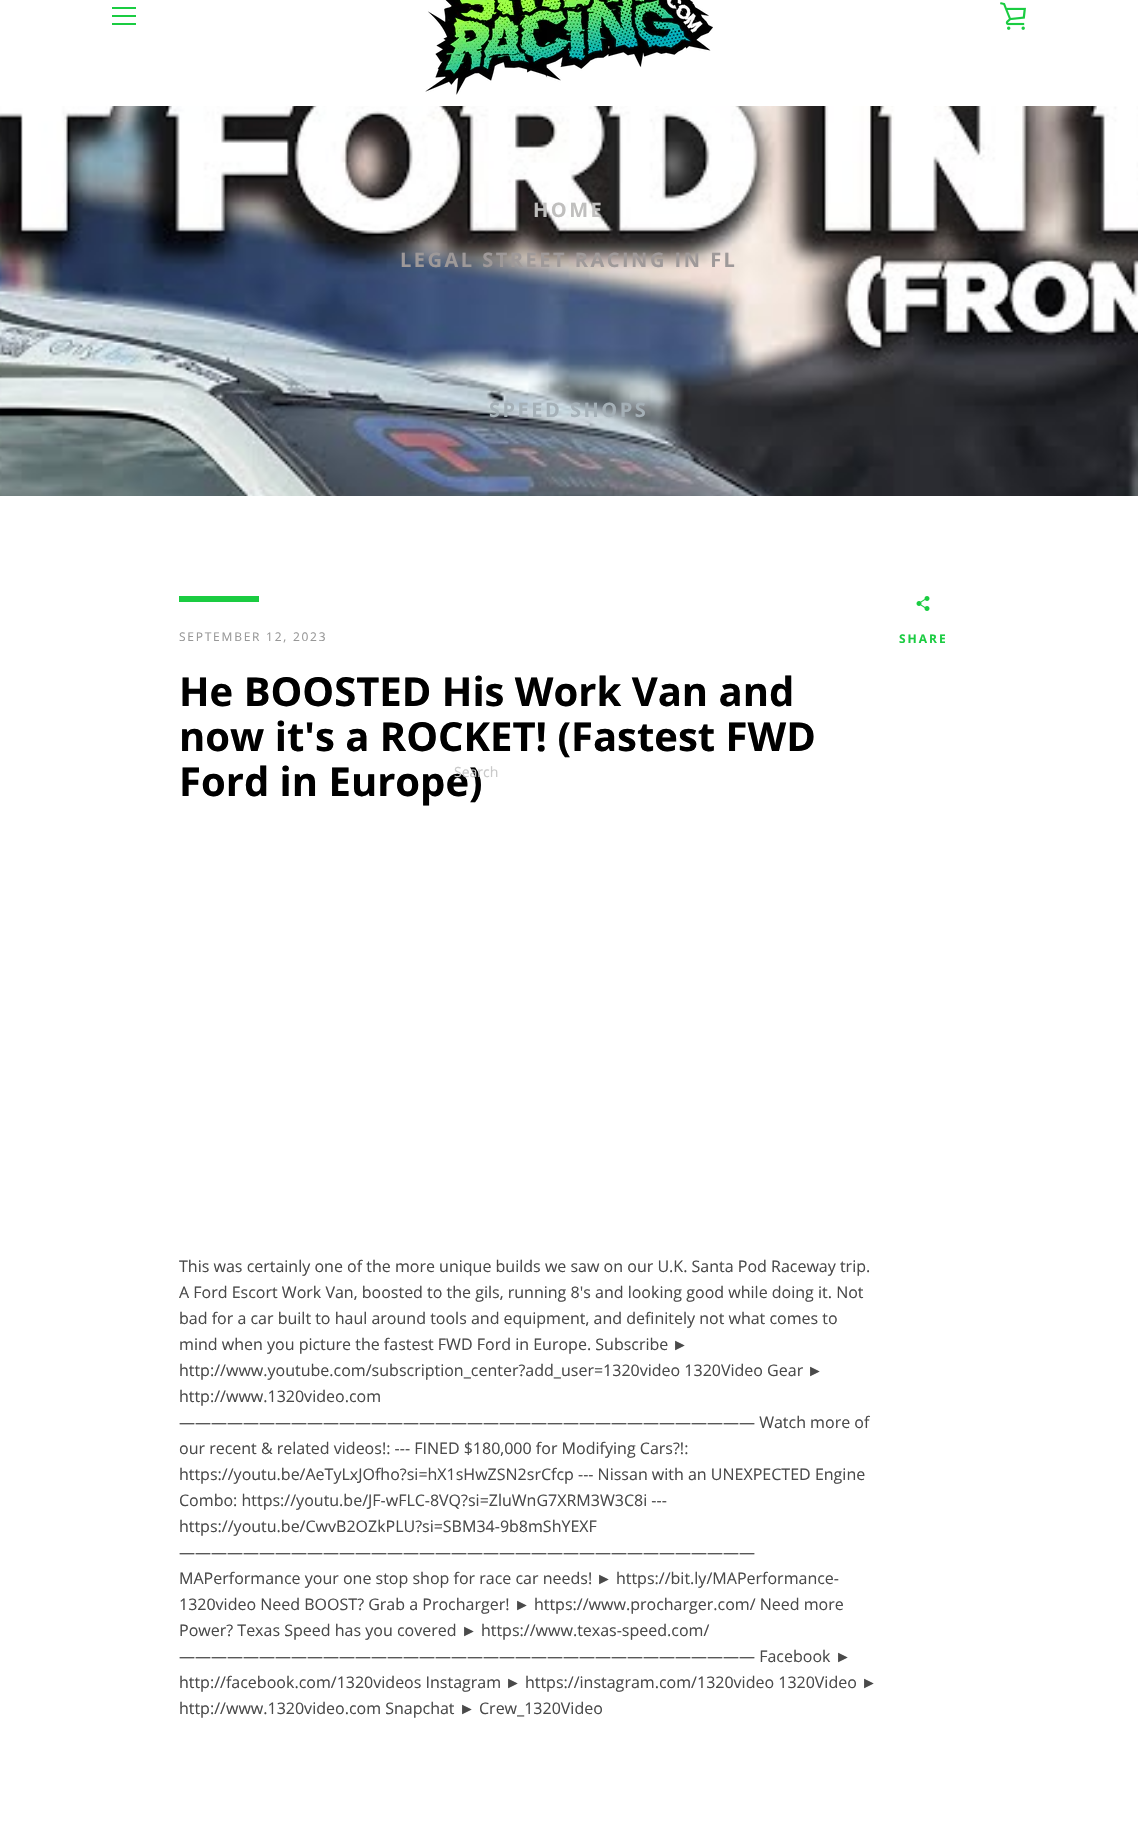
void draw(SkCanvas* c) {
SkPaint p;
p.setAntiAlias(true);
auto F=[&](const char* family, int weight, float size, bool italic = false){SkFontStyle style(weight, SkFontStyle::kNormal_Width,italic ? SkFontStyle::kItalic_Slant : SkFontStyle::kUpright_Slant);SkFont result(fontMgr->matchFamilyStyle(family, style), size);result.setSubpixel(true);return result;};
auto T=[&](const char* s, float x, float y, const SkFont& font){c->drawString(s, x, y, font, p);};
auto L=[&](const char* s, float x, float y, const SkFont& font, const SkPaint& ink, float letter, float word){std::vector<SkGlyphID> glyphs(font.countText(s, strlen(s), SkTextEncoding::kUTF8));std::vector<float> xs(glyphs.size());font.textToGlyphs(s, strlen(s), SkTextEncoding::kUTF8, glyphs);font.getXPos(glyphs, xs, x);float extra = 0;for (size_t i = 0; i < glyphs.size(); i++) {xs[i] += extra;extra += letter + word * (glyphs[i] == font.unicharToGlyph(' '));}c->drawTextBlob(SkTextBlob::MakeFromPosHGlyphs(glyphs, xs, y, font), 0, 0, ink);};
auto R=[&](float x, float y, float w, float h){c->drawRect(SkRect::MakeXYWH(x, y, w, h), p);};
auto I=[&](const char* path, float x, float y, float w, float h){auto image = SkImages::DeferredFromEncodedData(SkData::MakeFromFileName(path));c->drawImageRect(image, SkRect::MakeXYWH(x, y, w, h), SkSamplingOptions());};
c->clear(0xffffffff);
I("1.png",425,0,288,95);
I("2.png",1000,2,26,28);
p.setColor(0xff1acc41);
R(112,7,24,2);
R(112,15,24,2);
R(112,23,24,2);
I("3.png",0,106,1138,390);
auto f1 = F("Open Sans",700,20);
p.setColor(0xffc0bfbe);
L("HOME",533,217,f1,p,2.5,0);
p.setColor(0xff9e9999);
L("LEGAL STREET RACING IN FL",400,267,f1,p,2.5,0);
p.setColor(0xffa5b0b7);
L("SPEED SHOPS",489,417,f1,p,2.5,0);
auto f2 = F("Open Sans",700,40);
p.setColor(0xff000000);
T("Ford in Europe)",179,796,f2);
auto f3 = F("Open Sans",400,14);
p.setColor(0xffc9c9c9);
T("Search",454,777,f3);
p.setColor(0xff1acc41);
R(179,596,80,6);
auto f4 = F("Open Sans",400,12);
p.setColor(0xff979797);
L("SEPTEMBER 12, 2023",179,641,f4,p,1.75,0);
p.setColor(0xff000000);
T("He BOOSTED His Work Van and",179,706,f2);
T("now it's a ROCKET! (Fastest FWD",179,751,f2);
auto f5 = F("Open Sans",400,16);
p.setColor(0xff4a4a4a);
T("This was certainly one of the more unique builds we saw on our U.K. Santa Pod Raceway trip.",179,1272,f5);
T("A Ford Escort Work Van, boosted to the gils, running 8's and looking good while doing it. Not",179,1298,f5);
T("bad for a car built to haul around tools and equipment, and definitely not what comes to",179,1324,f5);
T("mind when you picture the fastest FWD Ford in Europe. Subscribe",179,1350,f5);
auto f6 = F("Liberation Sans",400,16);
T("►",672,1350,f6);
T("http://www.youtube.com/subscription_center?add_user=1320video 1320Video Gear",179,1376,f5);
T("►",807,1376,f6);
T("http://www.1320video.com",179,1402,f5);
T("———————————————————————————————————— Watch more of",179,1428,f5);
T("our recent & related videos!: --- FINED $180,000 for Modifying Cars?!:",179,1454,f5);
T("https://youtu.be/AeTyLxJOfho?si=hX1sHwZSN2srCfcp --- Nissan with an UNEXPECTED Engine",179,1480,f5);
T("Combo: https://youtu.be/JF-wFLC-8VQ?si=ZluWnG7XRM3W3C8i ---",179,1506,f5);
T("https://youtu.be/CwvB2OZkPLU?si=SBM34-9b8mShYEXF",179,1532,f5);
T("————————————————————————————————————",179,1558,f5);
T("MAPerformance your one stop shop for race car needs!",179,1584,f5);
T("►",596,1584,f6);
T("https://bit.ly/MAPerformance-",616,1584,f5);
T("1320video Need BOOST? Grab a Procharger!",179,1610,f5);
T("►",514,1610,f6);
T("https://www.procharger.com/ Need more",534,1610,f5);
T("Power? Texas Speed has you covered",179,1636,f5);
T("►",461,1636,f6);
T("https://www.texas-speed.com/",481,1636,f5);
T("———————————————————————————————————— Facebook",179,1662,f5);
T("►",835,1662,f6);
T("http://facebook.com/1320videos Instagram",179,1688,f5);
T("►",505,1688,f6);
T("https://instagram.com/1320video 1320Video",525,1688,f5);
T("►",861,1688,f6);
T("http://www.1320video.com Snapchat",179,1714,f5);
T("►",459,1714,f6);
T("Crew_1320Video",479,1714,f5);
I("4.png",916,596,14,15);
auto f7 = F("Open Sans",700,12);
p.setColor(0xff1acc41);
L("SHARE",899,643,f7,p,2,0);
}
